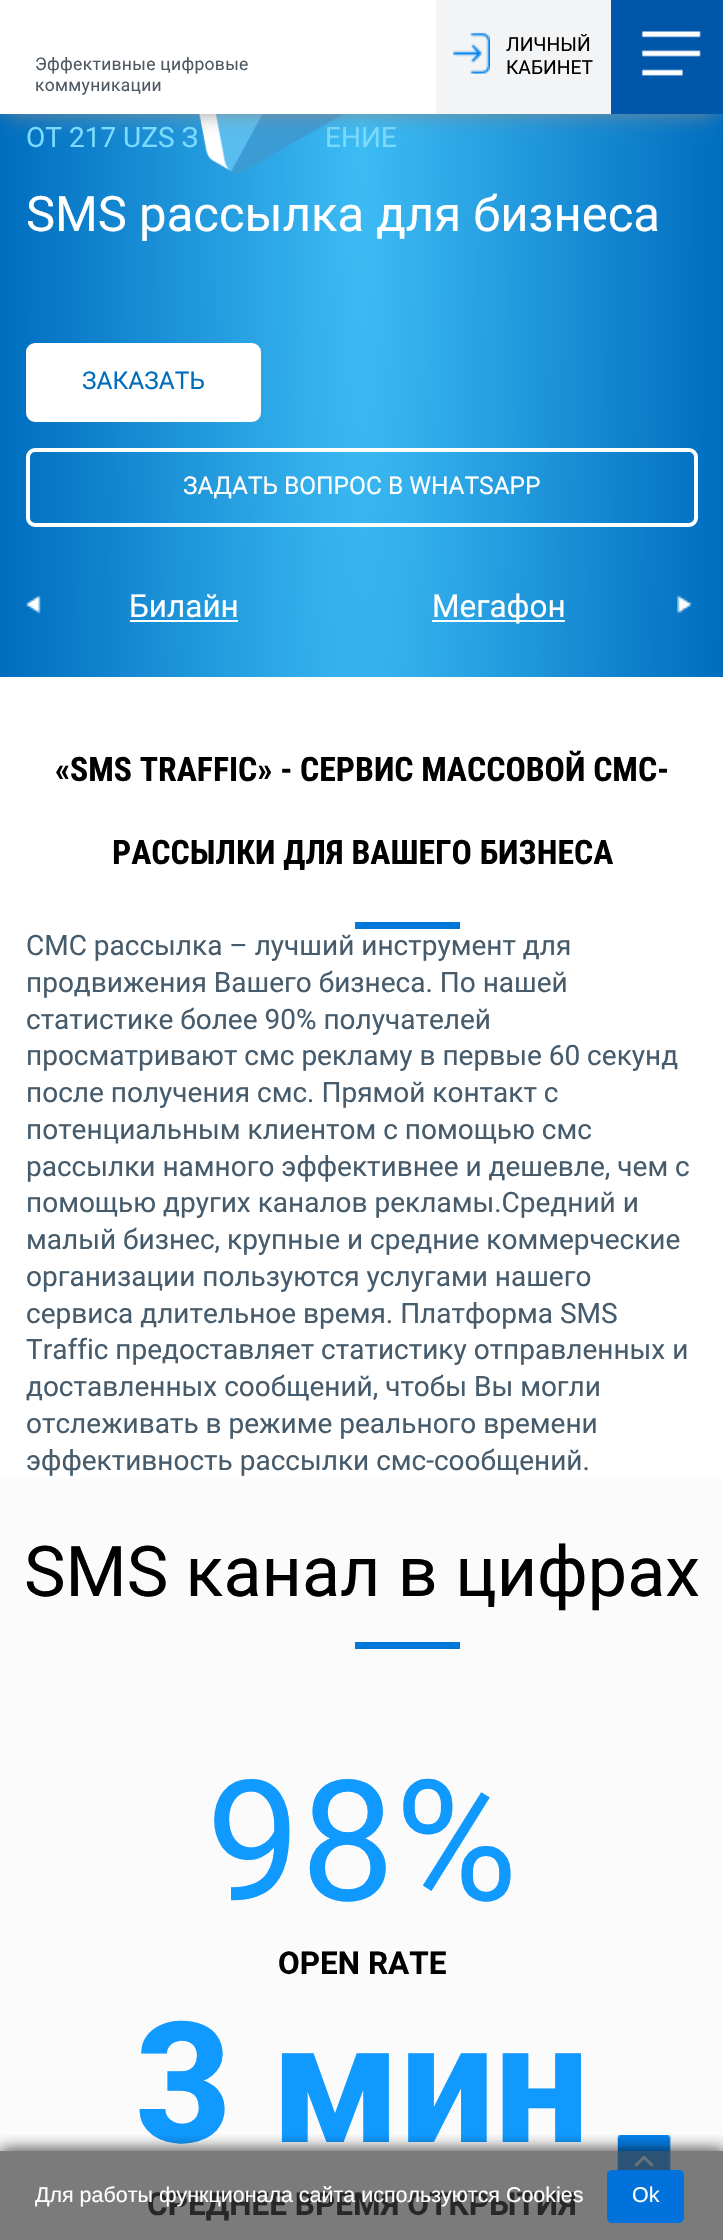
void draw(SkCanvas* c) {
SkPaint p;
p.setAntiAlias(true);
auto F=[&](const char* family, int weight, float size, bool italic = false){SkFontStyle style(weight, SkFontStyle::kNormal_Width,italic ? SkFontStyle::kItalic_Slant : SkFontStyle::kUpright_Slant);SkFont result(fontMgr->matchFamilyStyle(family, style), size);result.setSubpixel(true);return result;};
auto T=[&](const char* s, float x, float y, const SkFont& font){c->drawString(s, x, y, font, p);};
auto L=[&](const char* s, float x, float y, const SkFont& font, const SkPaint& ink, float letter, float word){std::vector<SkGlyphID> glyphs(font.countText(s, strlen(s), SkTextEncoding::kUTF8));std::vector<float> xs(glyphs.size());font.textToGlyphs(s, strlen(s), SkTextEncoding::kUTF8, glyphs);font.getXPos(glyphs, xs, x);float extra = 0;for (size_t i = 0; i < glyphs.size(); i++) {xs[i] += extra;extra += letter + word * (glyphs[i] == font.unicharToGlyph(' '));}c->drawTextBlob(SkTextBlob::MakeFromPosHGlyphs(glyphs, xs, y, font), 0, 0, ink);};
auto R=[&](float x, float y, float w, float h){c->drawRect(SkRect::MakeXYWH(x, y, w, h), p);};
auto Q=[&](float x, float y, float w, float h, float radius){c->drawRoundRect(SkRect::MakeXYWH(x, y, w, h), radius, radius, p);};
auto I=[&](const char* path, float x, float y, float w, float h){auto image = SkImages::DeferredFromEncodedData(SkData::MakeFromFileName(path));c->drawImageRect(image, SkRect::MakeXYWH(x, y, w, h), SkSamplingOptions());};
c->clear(0xffffffff);
{
const SkColor colors[] = {0xff3dbcf4,0xff006dbf};
const float stops[] = {0,1};
SkMatrix m = SkMatrix::Translate(362,143).preScale(362,4210);
p.setShader(SkGradientShader::MakeRadial({0, 0}, 1, colors, stops, 2, SkTileMode::kClamp, 0, &m));
p.setAlpha(255);
}
R(0,114,723,563);
auto f1 = F("Roboto",400,28);
p.setShader(nullptr);
p.setColor(0xff7bdaff);
T("ЕНИЕ",325,147,f1);
I("3.png",199,114,146,59);
p.setColor(0xff8c8c8c);
p.setMaskFilter(SkMaskFilter::MakeBlur(kNormal_SkBlurStyle, 10.5));
c->drawRect(SkRect::MakeXYWH(5,12,711,100),p);
p.setMaskFilter(nullptr);
p.setColor(0xffffffff);
R(0,0,436,114);
auto f2 = F("Roboto",400,17.5);
p.setColor(0xff4e5862);
L("Эффективные цифровые",35,70,f2,p,.3,0);
L("коммуникации",35,91,f2,p,.3,0);
p.setColor(0xfff3f4f6);
R(436,0,175,114);
I("1.png",453,32,37,42);
auto f3 = F("Roboto",400,19.25);
p.setColor(0xff000000);
T("ЛИЧНЫЙ",506,51,f3);
T("КАБИНЕТ",506,74,f3);
p.setColor(0xff0056a9);
R(611,0,112,114);
I("2.png",641,31,60,45);
p.setColor(0xff7bdaff);
T("ОТ 217 UZS З",26,147,f1);
auto f4 = F("Roboto",400,49);
p.setColor(0xffffffff);
T("SMS рассылка для бизнеса",26,231,f4);
c->drawRoundRect(SkRect::MakeXYWH(28,345,231,75),7,7,p);
p.setStroke(true);
p.setStrokeWidth(4);
c->drawRoundRect(SkRect::MakeXYWH(28,345,231,75),7,7,p);
auto f5 = F("Roboto",400,24.5);
p.setStroke(false);
p.setColor(0xff006dbf);
T("ЗАКАЗАТЬ",82,389,f5);
p.setStroke(true);
p.setColor(0xffffffff);
c->drawRoundRect(SkRect::MakeXYWH(28,450,668,75),7,7,p);
p.setStroke(false);
T("ЗАДАТЬ ВОПРОС В WHATSAPP",183,494,f5);
auto f6 = F("Roboto",400,31.5);
T("Билайн",129,617,f6);
R(130,620,108,2);
R(432,620,133,2);
T("Мегафон",432,617,f6);
I("4.png",26,595,15,19);
I("5.png",677,594,15,20);
auto f7 = F("Roboto Condensed",700,33.7);
p.setColor(0xff000000);
T("«SMS TRAFFIC» - СЕРВИС МАССОВОЙ СМС-",55,781,f7);
T("РАССЫЛКИ ДЛЯ ВАШЕГО БИЗНЕСА",112,864,f7);
p.setColor(0xff0078d9);
R(355,922,105,7);
p.setColor(0xff465b6b);
T("СМС рассылка – лучший инструмент для",26,955,f1);
T("продвижения Вашего бизнеса. По нашей",26,992,f1);
T("статистике более 90% получателей",26,1029,f1);
T("просматривают смс рекламу в первые 60 секунд",26,1065,f1);
T("после получения смс. Прямой контакт с",26,1102,f1);
T("потенциальным клиентом с помощью смс",26,1139,f1);
T("рассылки намного эффективнее и дешевле, чем с",26,1176,f1);
T("помощью других каналов рекламы.Средний и",26,1212,f1);
T("малый бизнес, крупные и средние коммерческие",26,1249,f1);
T("организации пользуются услугами нашего",26,1286,f1);
T("сервиса длительное время. Платформа SMS",26,1323,f1);
T("Traffic предоставляет статистику отправленных и",26,1359,f1);
T("доставленных сообщений, чтобы Вы могли",26,1396,f1);
T("отслеживать в режиме реального времени",26,1433,f1);
T("эффективность рассылки смс-сообщений.",26,1470,f1);
p.setColor(0xfffbfbfb);
R(0,1479,723,761);
auto f8 = F("Roboto",400,70);
p.setColor(0xff000000);
T("SMS канал в цифрах",24,1596,f8);
p.setColor(0xff0078d9);
R(355,1642,105,7);
auto f9 = F("Roboto",400,168);
p.setColor(0xff1099ff);
T("98%",206,1900,f9);
auto f10 = F("Roboto",700,31.5);
p.setColor(0xff000000);
T("OPEN RATE",278,1974,f10);
auto f11 = F("Roboto",800,168);
p.setColor(0xff1099ff);
L("3 мин",135,2142,f11,p,0,-2);
p.setColor(0xff000000);
T("СРЕДНЕЕ ВРЕМЯ ОТКРЫТИЯ",147,2215,f10);
I("6.png",617,2135,54,35);
c->save();
c->clipRect(SkRect::MakeXYWH(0,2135,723,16));
p.setColor(0xb3000000);
p.setMaskFilter(SkMaskFilter::MakeBlur(kNormal_SkBlurStyle, 7.5));
c->drawRect(SkRect::MakeXYWH(0,2149,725,89),p);
p.setMaskFilter(nullptr);
c->restore();
p.setColor(0xab3b3b3b);
R(0,2151,723,89);
auto f12 = F("Liberation Sans",400,21.45);
p.setColor(0xffffffff);
T("Для работы функционала сайта используются Cookies",35,2202,f12);
p.setColor(0xff0172db);
Q(607,2170,77,53,5);
p.setColor(0xffffffff);
T("Ok",632,2202,f12);
}
